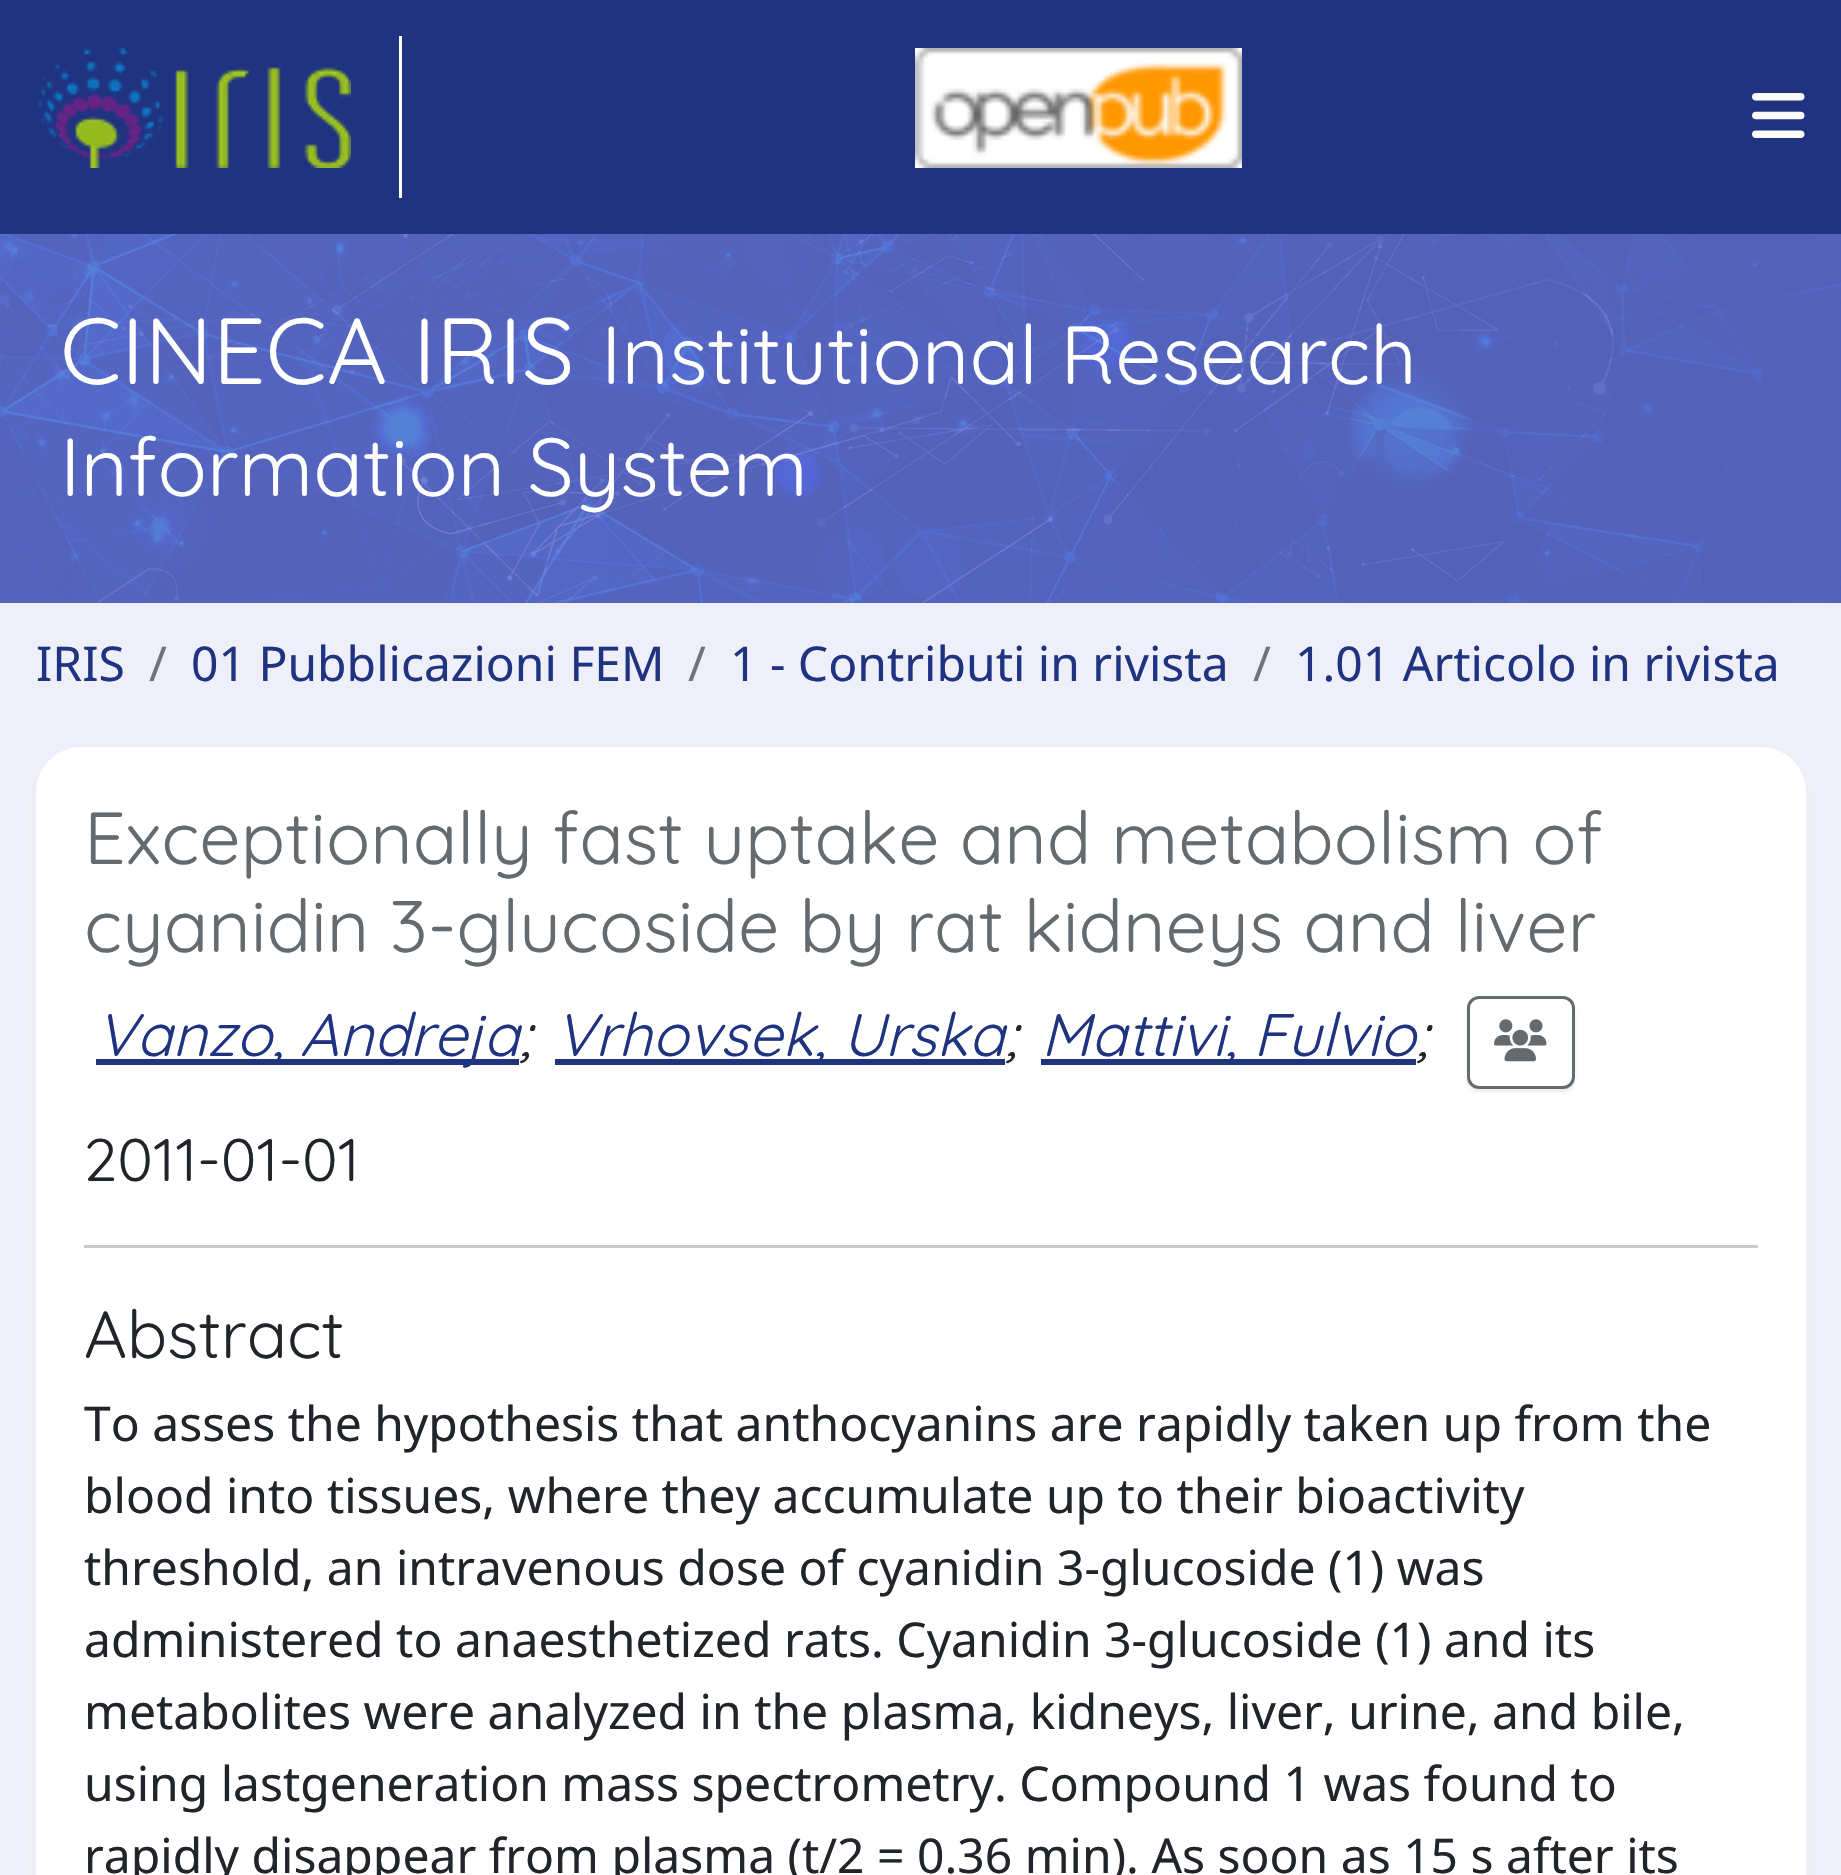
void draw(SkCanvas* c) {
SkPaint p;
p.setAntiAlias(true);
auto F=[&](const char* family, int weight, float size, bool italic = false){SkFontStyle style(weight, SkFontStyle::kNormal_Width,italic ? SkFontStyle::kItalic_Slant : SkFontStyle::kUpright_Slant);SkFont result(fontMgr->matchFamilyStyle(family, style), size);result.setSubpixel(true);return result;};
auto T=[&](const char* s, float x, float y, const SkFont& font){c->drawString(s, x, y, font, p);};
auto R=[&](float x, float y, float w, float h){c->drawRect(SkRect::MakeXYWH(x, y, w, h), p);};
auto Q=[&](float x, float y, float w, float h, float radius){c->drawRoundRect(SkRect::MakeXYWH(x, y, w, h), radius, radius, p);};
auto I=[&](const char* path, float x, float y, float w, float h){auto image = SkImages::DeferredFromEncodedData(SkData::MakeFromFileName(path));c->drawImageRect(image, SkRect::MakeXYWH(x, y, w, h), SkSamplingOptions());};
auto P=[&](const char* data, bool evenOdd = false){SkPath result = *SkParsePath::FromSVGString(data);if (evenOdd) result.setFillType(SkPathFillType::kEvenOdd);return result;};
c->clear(0xffeeeff9);
p.setColor(0xff1f3381);
R(0,0,1841,234);
p.setColor(0xfffefbfb);
R(399,36,3,162);
I("1.png",36,48,315,120);
I("2.png",915,48,327,120);
I("3.png",1752,93,53,45);
I("4.png",0,234,1841,369);
auto f1 = F("Quicksand",300,93.5);
p.setColor(0xffffffff);
T("CINECA IRIS",60,384,f1);
auto f2 = F("Quicksand",300,82);
T("Institutional Research",601,384,f2);
T("Information System",60,496,f2);
auto f3 = F("Noto Sans",400,48);
p.setColor(0xff1f3381);
T("IRIS",36,681,f3);
p.setColor(0xff6c757d);
T("/",149,681,f3);
p.setColor(0xff1f3381);
T("01 Pubblicazioni FEM",191,681,f3);
p.setColor(0xff6c757d);
T("/",688,681,f3);
p.setColor(0xff1f3381);
T("1 - Contributi in rivista",730,681,f3);
p.setColor(0xff6c757d);
T("/",1253,681,f3);
p.setColor(0xff1f3381);
T("1.01 Articolo in rivista",1295,681,f3);
p.setColor(0xffeeeeee);
p.setMaskFilter(SkMaskFilter::MakeBlur(kNormal_SkBlurStyle, 9));
c->drawRoundRect(SkRect::MakeXYWH(42,765,1758,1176),39,39,p);
p.setMaskFilter(nullptr);
p.setColor(0xffffffff);
Q(36,747,1770,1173,45);
auto f4 = F("Quicksand",300,73.45);
p.setColor(0xff656a6e);
T("Exceptionally fast uptake and metabolism of",84,864,f4);
T("cyanidin 3-glucoside by rat kidneys and liver",84,952,f4);
p.setColor(0xff1f3381);
R(96,1059,423,6);
auto f5 = F("Quicksand",300,60,true);
T("Vanzo, Andreja",96,1056,f5);
p.setColor(0xff212529);
T(";",519,1056,f5);
p.setColor(0xff1f3381);
R(555,1059,450,6);
T("Vrhovsek, Urska",555,1056,f5);
p.setColor(0xff212529);
T(";",1005,1056,f5);
p.setColor(0xff1f3381);
R(1041,1059,375,6);
T("Mattivi, Fulvio",1041,1056,f5);
p.setColor(0xff212529);
T(";",1416,1056,f5);
c->save();
c->clipPath(P("M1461 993h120v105h-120zm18 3h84c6.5 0 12 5.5 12 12v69c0 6.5-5.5 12-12 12h-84c-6.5 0-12-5.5-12-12v-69c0-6.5 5.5-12 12-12z",true),true);
p.setColor(0x12000000);
p.setMaskFilter(SkMaskFilter::MakeBlur(kNormal_SkBlurStyle, 1.5));
c->drawRoundRect(SkRect::MakeXYWH(1467,999,108,93),12,12,p);
p.setMaskFilter(nullptr);
c->restore();
p.setStroke(true);
p.setStrokeWidth(3);
p.setColor(0xff656a6e);
c->drawRoundRect(SkRect::MakeXYWH(1468.5,997.5,105,90),10.5,10.5,p);
I("5.png",1494,1019,53,43);
auto f6 = F("Quicksand",300,60);
p.setStroke(false);
p.setColor(0xff212529);
T("2011-01-01",84,1181,f6);
p.setColor(0xffc8c9ca);
R(84,1245,1674,3);
auto f7 = F("Quicksand",300,66.5);
p.setColor(0xff212529);
T("Abstract",84,1358,f7);
T("To asses the hypothesis that anthocyanins are rapidly taken up from the",84,1441,f3);
T("blood into tissues, where they accumulate up to their bioactivity",84,1513,f3);
T("threshold, an intravenous dose of cyanidin 3-glucoside (1) was",84,1585,f3);
T("administered to anaesthetized rats. Cyanidin 3-glucoside (1) and its",84,1657,f3);
T("metabolites were analyzed in the plasma, kidneys, liver, urine, and bile,",84,1729,f3);
T("using lastgeneration mass spectrometry. Compound 1 was found to",84,1801,f3);
T("rapidly disappear from plasma (t/2 = 0.36 min). As soon as 15 s after its",84,1873,f3);
}
